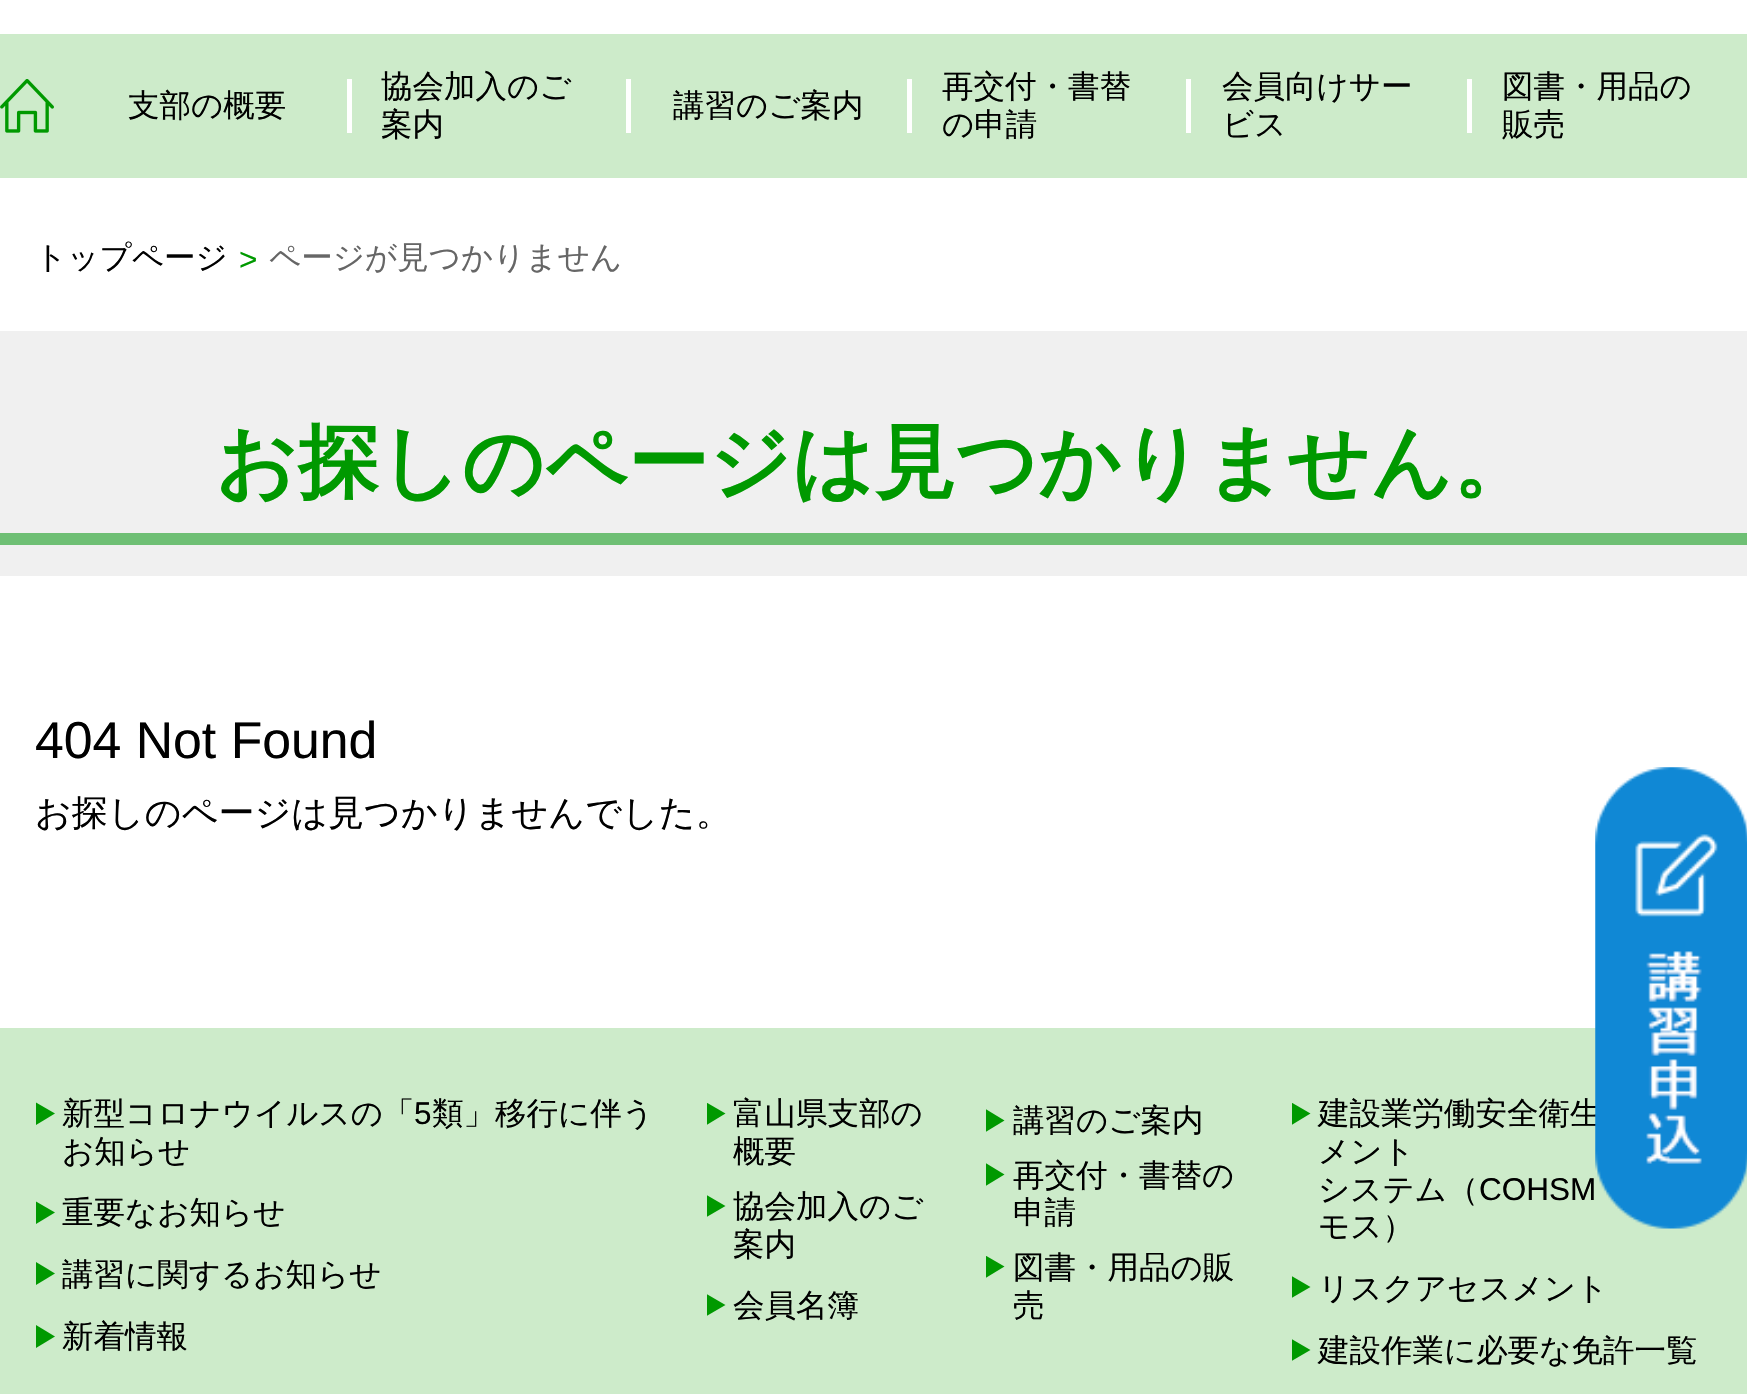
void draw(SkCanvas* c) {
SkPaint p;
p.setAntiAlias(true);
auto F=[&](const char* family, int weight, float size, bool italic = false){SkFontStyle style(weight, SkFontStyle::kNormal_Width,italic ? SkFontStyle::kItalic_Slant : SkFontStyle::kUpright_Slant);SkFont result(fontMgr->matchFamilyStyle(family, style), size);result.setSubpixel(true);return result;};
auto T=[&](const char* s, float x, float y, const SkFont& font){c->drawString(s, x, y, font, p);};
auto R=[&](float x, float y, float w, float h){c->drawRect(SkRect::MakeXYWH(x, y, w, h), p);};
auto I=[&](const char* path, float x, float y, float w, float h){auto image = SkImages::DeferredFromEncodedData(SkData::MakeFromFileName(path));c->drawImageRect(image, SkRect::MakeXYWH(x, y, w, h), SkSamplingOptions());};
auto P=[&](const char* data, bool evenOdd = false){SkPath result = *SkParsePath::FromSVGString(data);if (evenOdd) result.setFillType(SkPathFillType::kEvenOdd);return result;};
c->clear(0xffffffff);
p.setColor(0xffcdebca);
R(0,34,1747,144);
I("1.png",0,79,54,54);
auto f1 = F("WenQuanYi Zen Hei",500,31.5);
p.setColor(0xff000000);
T("支部の概要",128,116,f1);
p.setColor(0xffffffff);
R(347,79,5,54);
p.setColor(0xff000000);
T("協会加入のご",381,97,f1);
T("案内",381,135,f1);
p.setColor(0xffffffff);
R(626,79,5,54);
p.setColor(0xff000000);
T("講習のご案内",673,116,f1);
p.setColor(0xffffffff);
R(907,79,5,54);
p.setColor(0xff000000);
T("再交付・書替",942,97,f1);
T("の申請",942,135,f1);
p.setColor(0xffffffff);
R(1186,79,5,54);
p.setColor(0xff000000);
T("会員向けサー",1222,97,f1);
T("ビス",1222,135,f1);
p.setColor(0xffffffff);
R(1467,79,5,54);
p.setColor(0xff000000);
T("図書・用品の",1502,97,f1);
T("販売",1502,135,f1);
T("トップページ",35,268,f1);
auto f2 = F("Liberation Sans",400,31.5);
p.setColor(0xff009900);
T(">",239,270,f2);
p.setColor(0xff666666);
T("ページが見つかりません",269,268,f1);
p.setColor(0xfff0f0f0);
R(0,331,1747,245);
p.setColor(0xff6ebf74);
R(0,533,1747,12);
auto f3 = F("WenQuanYi Zen Hei",700,81);
p.setColor(0xff009900);
T("お探しのページは見つかりません。",215,490,f3);
auto f4 = F("Liberation Sans",400,51.75);
p.setColor(0xff000000);
T("404 Not Found",35,758,f4);
auto f5 = F("WenQuanYi Zen Hei",500,36);
T("お探しのページは見つかりませんでした。",35,825,f5);
p.setColor(0xffcdebca);
R(0,1028,1747,366);
p.setColor(0xff000000);
T("建設業労働安全衛生",1318,1124,f1);
I("2.png",1595,767,152,462);
p.setColor(0xff009900);
c->drawPath(P("M36 1125v-22.5l19 11z"),p);
p.setColor(0xff000000);
T("新型コロナウイルスの「",62,1124,f1);
T("5",414,1124,f2);
T("類」移行に伴う",432,1124,f1);
T("お知らせ",62,1162,f1);
p.setColor(0xff009900);
c->drawPath(P("M36 1224v-22.5l19 11z"),p);
p.setColor(0xff000000);
T("重要なお知らせ",62,1223,f1);
p.setColor(0xff009900);
c->drawPath(P("M36 1285v-23l19 11.5z"),p);
p.setColor(0xff000000);
T("講習に関するお知らせ",62,1285,f1);
p.setColor(0xff009900);
c->drawPath(P("M36 1348v-23l19 11.5z"),p);
p.setColor(0xff000000);
T("新着情報",62,1347,f1);
c->save();
c->clipRect(SkRect::MakeXYWH(707,1103,22,22));
p.setColor(0xff009900);
c->drawPath(P("M706.5 1125v-22.5l19 11z"),p);
c->restore();
p.setColor(0xff000000);
T("富山県支部の",733,1124,f1);
T("概要",733,1162,f1);
c->save();
c->clipRect(SkRect::MakeXYWH(707,1195,22,22));
p.setColor(0xff009900);
c->drawPath(P("M706.5 1217v-22l19 11z"),p);
c->restore();
p.setColor(0xff000000);
T("協会加入のご",733,1217,f1);
T("案内",733,1255,f1);
c->save();
c->clipRect(SkRect::MakeXYWH(707,1294,22,22));
p.setColor(0xff009900);
c->drawPath(P("M706.5 1316v-22l19 11z"),p);
c->restore();
p.setColor(0xff000000);
T("会員名簿",733,1316,f1);
c->save();
c->clipRect(SkRect::MakeXYWH(986,1109,22,23));
p.setColor(0xff009900);
c->drawPath(P("M985.5 1132v-23l19 11.5z"),p);
c->restore();
p.setColor(0xff000000);
T("講習のご案内",1013,1131,f1);
c->save();
c->clipRect(SkRect::MakeXYWH(986,1163,22,23));
p.setColor(0xff009900);
c->drawPath(P("M985.5 1186v-23l19 11.5z"),p);
c->restore();
p.setColor(0xff000000);
T("再交付・書替の",1013,1186,f1);
T("申請",1013,1223,f1);
c->save();
c->clipRect(SkRect::MakeXYWH(986,1256,22,22));
p.setColor(0xff009900);
c->drawPath(P("M985.5 1278v-22.5l19 11z"),p);
c->restore();
p.setColor(0xff000000);
T("図書・用品の販",1013,1278,f1);
T("売",1013,1316,f1);
c->save();
c->clipRect(SkRect::MakeXYWH(1292,1103,22,22));
p.setColor(0xff009900);
c->drawPath(P("M1291.5 1125v-22.5l19 11z"),p);
c->restore();
p.setColor(0xff000000);
T("メント",1318,1162,f1);
T("システム（",1318,1200,f1);
T("COHSM",1479,1200,f2);
T("モス）",1318,1237,f1);
c->save();
c->clipRect(SkRect::MakeXYWH(1292,1276,22,22));
p.setColor(0xff009900);
c->drawPath(P("M1291.5 1298v-22l19 11z"),p);
c->restore();
p.setColor(0xff000000);
T("リスクアセスメント",1318,1299,f1);
c->save();
c->clipRect(SkRect::MakeXYWH(1292,1339,22,22));
p.setColor(0xff009900);
c->drawPath(P("M1291.5 1361v-22l19 11z"),p);
c->restore();
p.setColor(0xff000000);
T("建設作業に必要な免許一覧",1318,1361,f1);
}
